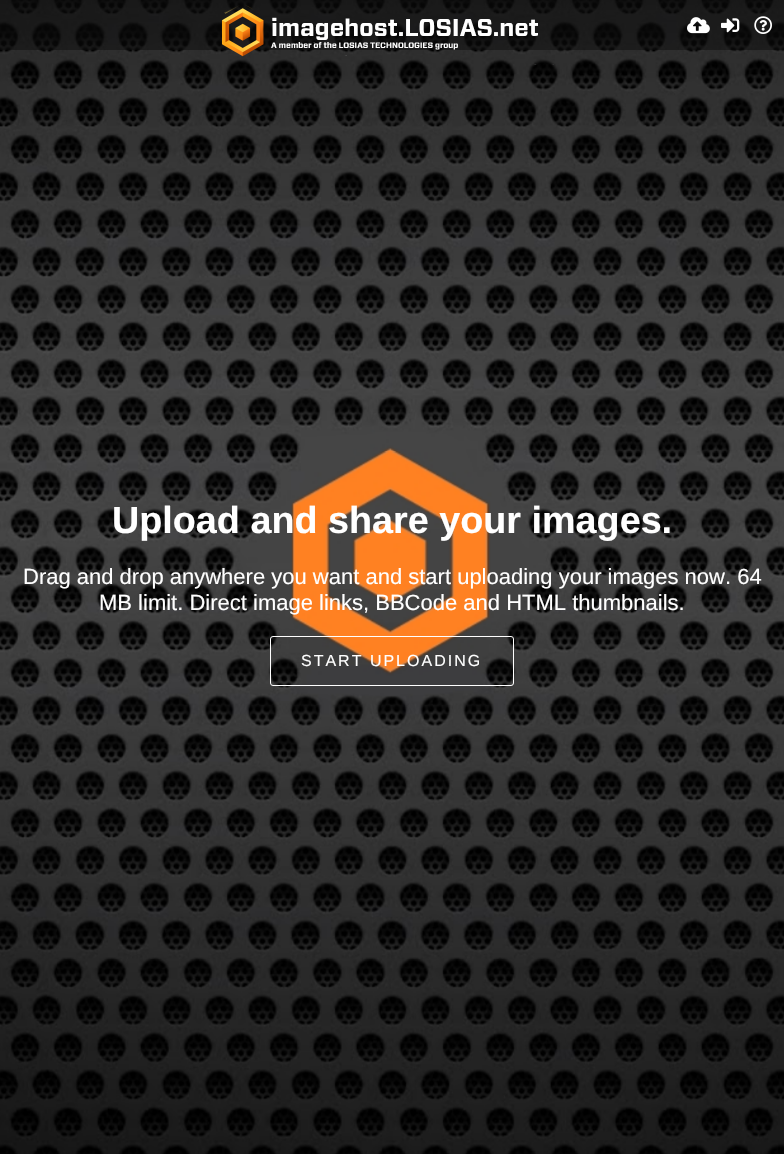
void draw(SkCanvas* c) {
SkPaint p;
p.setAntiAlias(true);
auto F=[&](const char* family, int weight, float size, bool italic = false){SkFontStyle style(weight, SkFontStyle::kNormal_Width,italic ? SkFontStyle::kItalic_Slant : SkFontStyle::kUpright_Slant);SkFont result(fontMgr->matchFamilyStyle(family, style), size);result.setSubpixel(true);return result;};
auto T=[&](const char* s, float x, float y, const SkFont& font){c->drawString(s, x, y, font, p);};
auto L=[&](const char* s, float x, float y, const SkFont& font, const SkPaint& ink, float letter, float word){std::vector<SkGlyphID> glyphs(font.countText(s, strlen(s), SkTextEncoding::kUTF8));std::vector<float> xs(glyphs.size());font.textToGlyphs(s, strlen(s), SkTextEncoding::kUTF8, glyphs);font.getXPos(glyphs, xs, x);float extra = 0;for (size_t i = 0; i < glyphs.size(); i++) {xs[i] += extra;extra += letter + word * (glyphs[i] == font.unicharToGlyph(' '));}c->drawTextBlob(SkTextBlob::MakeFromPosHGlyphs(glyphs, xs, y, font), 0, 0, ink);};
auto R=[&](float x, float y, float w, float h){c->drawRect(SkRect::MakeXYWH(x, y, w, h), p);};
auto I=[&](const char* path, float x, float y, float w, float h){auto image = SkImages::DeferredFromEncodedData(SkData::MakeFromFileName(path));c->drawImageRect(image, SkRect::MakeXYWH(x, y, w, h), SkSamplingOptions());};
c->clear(0xffffffff);
I("5.png",0,0,784,1154);
p.setColor(0x800b0b0b);
R(0,0,784,50);
I("1.png",221,5,333,60);
I("2.png",687,17,23,17);
I("3.png",721,18,19,15);
I("4.png",754,16,18,18);
auto f1 = F("Liberation Sans",700,37.75);
p.setColor(0xffffffff);
T("Upload and share your images.",112,533,f1);
auto f2 = F("Liberation Sans",400,22);
T("Drag and drop anywhere you want and start uploading your images now. 64",23,584,f2);
T("MB limit. Direct image links, BBCode and HTML thumbnails.",99,610,f2);
p.setStroke(true);
p.setStrokeWidth(1);
c->drawRoundRect(SkRect::MakeXYWH(270.5,636.5,243,49),2.5,2.5,p);
auto f3 = F("Liberation Sans",400,16);
p.setStroke(false);
L("START UPLOADING",301,666,f3,p,2,0);
}
